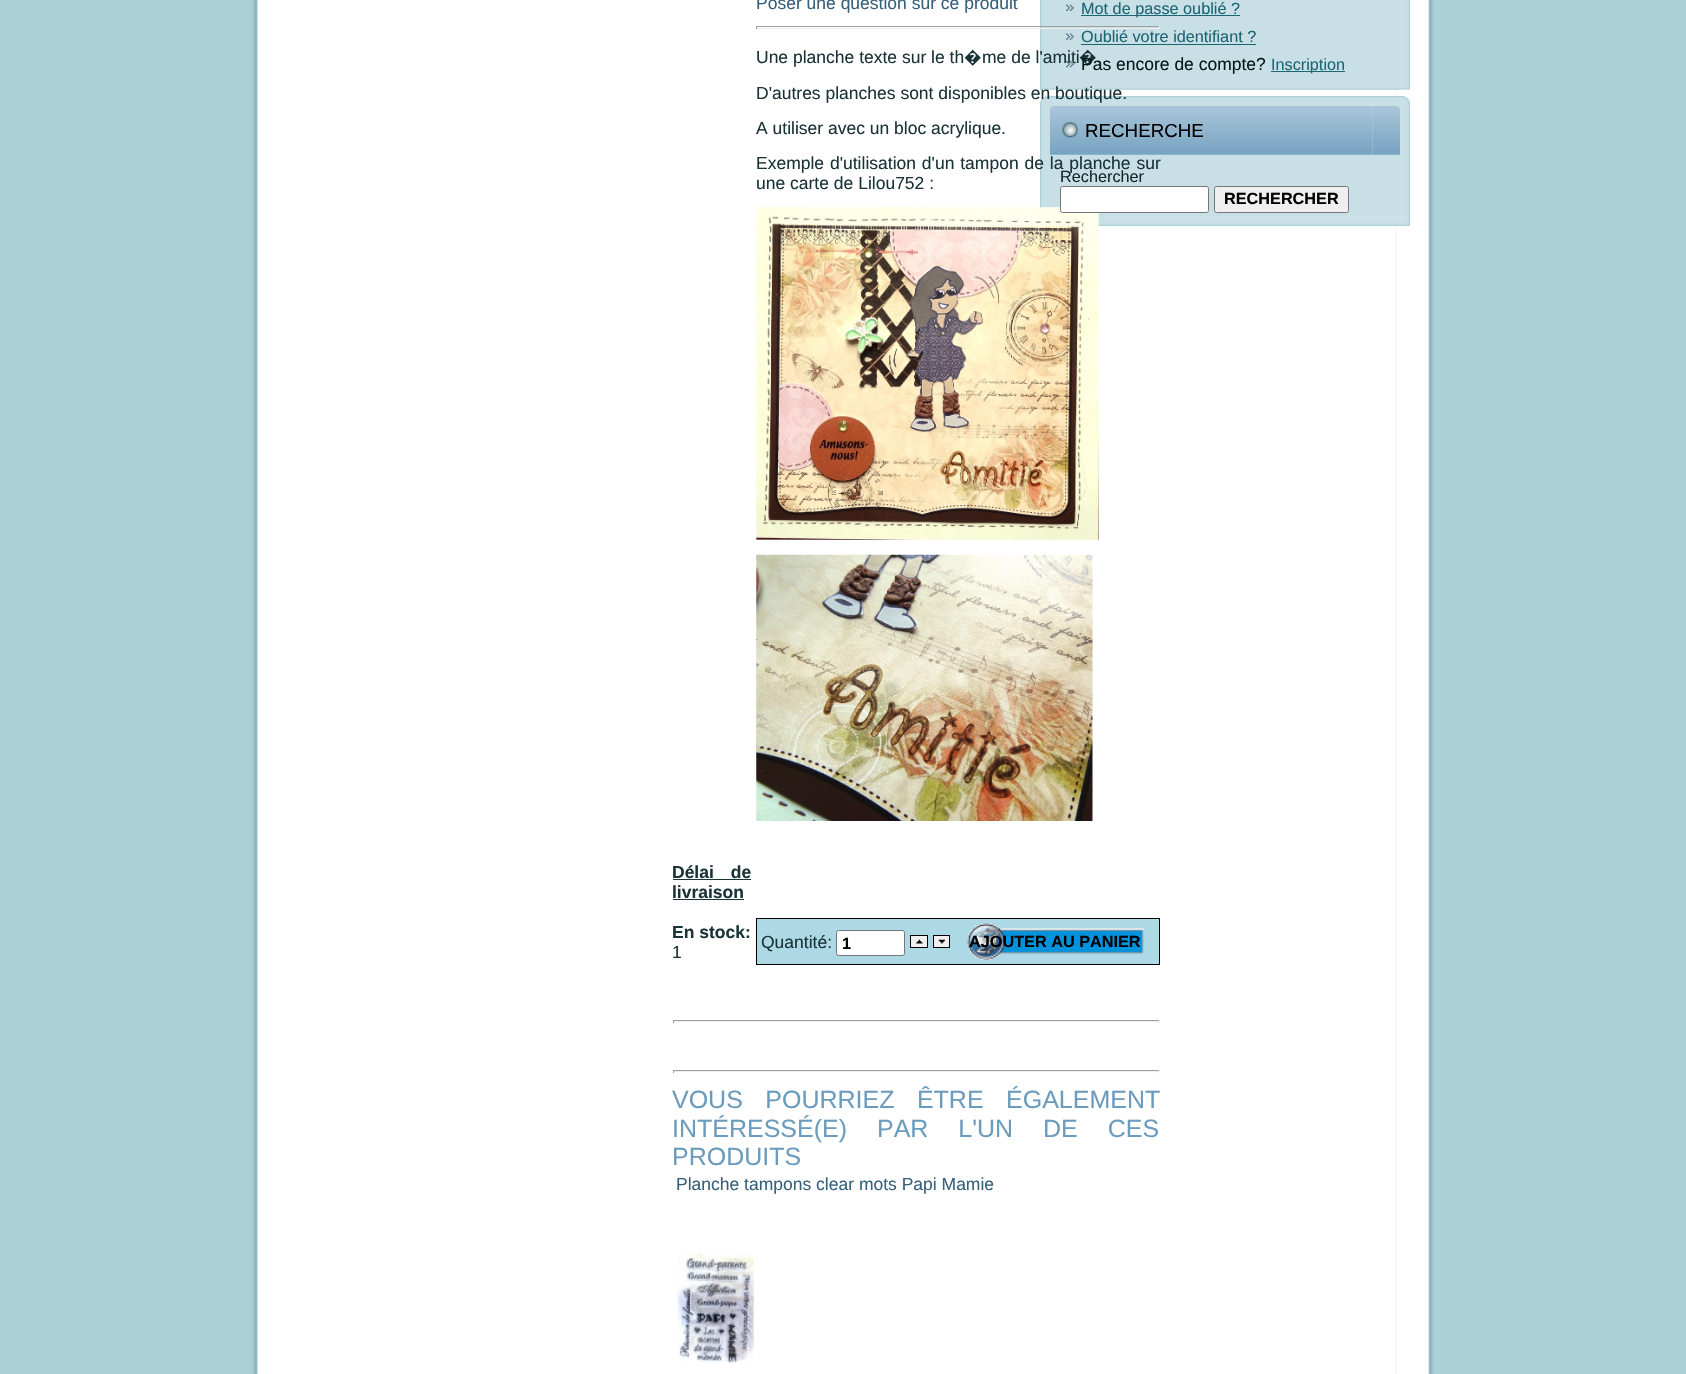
void draw(SkCanvas* c) {
SkPaint p;
p.setAntiAlias(true);
auto F=[&](const char* family, int weight, float size, bool italic = false){SkFontStyle style(weight, SkFontStyle::kNormal_Width,italic ? SkFontStyle::kItalic_Slant : SkFontStyle::kUpright_Slant);SkFont result(fontMgr->matchFamilyStyle(family, style), size);result.setSubpixel(true);return result;};
auto T=[&](const char* s, float x, float y, const SkFont& font){c->drawString(s, x, y, font, p);};
auto L=[&](const char* s, float x, float y, const SkFont& font, const SkPaint& ink, float letter, float word){std::vector<SkGlyphID> glyphs(font.countText(s, strlen(s), SkTextEncoding::kUTF8));std::vector<float> xs(glyphs.size());font.textToGlyphs(s, strlen(s), SkTextEncoding::kUTF8, glyphs);font.getXPos(glyphs, xs, x);float extra = 0;for (size_t i = 0; i < glyphs.size(); i++) {xs[i] += extra;extra += letter + word * (glyphs[i] == font.unicharToGlyph(' '));}c->drawTextBlob(SkTextBlob::MakeFromPosHGlyphs(glyphs, xs, y, font), 0, 0, ink);};
auto R=[&](float x, float y, float w, float h){c->drawRect(SkRect::MakeXYWH(x, y, w, h), p);};
auto I=[&](const char* path, float x, float y, float w, float h){auto image = SkImages::DeferredFromEncodedData(SkData::MakeFromFileName(path));c->drawImageRect(image, SkRect::MakeXYWH(x, y, w, h), SkSamplingOptions());};
c->clear(0xffacd0d8);
I("1.png",252,0,1145,1374);
auto f1 = F("Liberation Sans",400,17.5);
p.setColor(0xff37607b);
T("Poser une question sur ce produit",756,9,f1);
I("23.png",1396,0,38,1374);
I("8.png",1040,0,362,81);
p.setColor(0xff9f9f9f);
R(756,26,404,1);
p.setColor(0xffeeeeee);
R(1159,26,1,3);
R(756,28,404,1);
p.setColor(0xff9f9f9f);
R(756,26,1,3);
p.setColor(0xff1a3337);
T("Une planche texte sur le th",756,63,f1);
auto f2 = F("Noto Sans",400,17.5);
T("�",964,63,f2);
T("me de l'amiti",982,63,f1);
T("�",1079,63,f2);
T(".",1097,63,f1);
I("13.png",1040,81,362,9);
I("15.png",1040,96,362,130);
I("16.png",1040,96,362,9);
T("D'autres planches sont disponibles en boutique.",756,99,f1);
T("A utiliser avec un bloc acrylique.",756,134,f1);
I("19.png",1040,105,362,113);
L("Exemple d'utilisation d'un tampon de la planche sur",756,169,f1,p,0,1);
T("une carte de Lilou752 :",756,189,f1);
I("2.png",756,207,343,333);
I("3.png",756,554,337,267);
auto f3 = F("Liberation Sans",700,17.5);
L("Délai de",672,878,f3,p,0,12);
R(673,879,78,1);
T("livraison",672,898,f3);
R(673,899,71,1);
T("En stock:",672,938,f3);
T("1",672,958,f1);
p.setColor(0xffadd8e6);
c->drawRect(SkRect::MakeXYWH(756.5,918.5,403,46),p);
p.setStroke(true);
p.setStrokeWidth(1);
p.setColor(0xff000000);
c->drawRect(SkRect::MakeXYWH(756.5,918.5,403,46),p);
p.setStroke(false);
p.setColor(0xff1a3337);
T("Quantité:",761,948,f1);
p.setColor(0xffffffff);
c->drawRoundRect(SkRect::MakeXYWH(836.5,930.5,68,25),2,2,p);
p.setStroke(true);
p.setColor(0xff767676);
c->drawRoundRect(SkRect::MakeXYWH(836.5,930.5,68,25),2,2,p);
auto f4 = F("Liberation Sans",700,16.25);
p.setStroke(false);
p.setColor(0xff000000);
T("1",842,949,f4);
p.setColor(0xffefefef);
R(911,936,16,11);
I("4.png",916,939,7,5);
p.setStroke(true);
p.setColor(0xff000000);
c->drawRect(SkRect::MakeXYWH(910.5,935.5,17,12),p);
p.setStroke(false);
p.setColor(0xffefefef);
R(934,936,15,11);
I("5.png",938,939,7,5);
p.setStroke(true);
p.setColor(0xff000000);
c->drawRect(SkRect::MakeXYWH(933.5,935.5,16,12),p);
I("6.png",967,923,177,37);
p.setStroke(false);
T("AJOUTER AU PANIER",969,947,f4);
p.setColor(0xff9f9f9f);
R(673,1020,487,1);
p.setColor(0xffeeeeee);
R(1159,1020,1,3);
R(673,1021,487,1);
p.setColor(0xff9f9f9f);
R(673,1020,1,3);
R(673,1070,487,1);
p.setColor(0xffeeeeee);
R(1159,1070,1,3);
R(673,1071,487,1);
p.setColor(0xff9f9f9f);
R(673,1070,1,3);
auto f5 = F("Liberation Sans",400,25);
p.setColor(0xff6b9cbd);
L("VOUS POURRIEZ ÊTRE ÉGALEMENT",672,1108,f5,p,0,15.5);
L("INTÉRESSÉ(E) PAR L'UN DE CES",672,1137,f5,p,0,23);
T("PRODUITS",672,1165,f5);
p.setColor(0xff37607b);
T("Planche tampons clear mots Papi Mamie",676,1190,f1);
I("7.png",677,1253,77,111);
I("9.png",1401,0,9,81);
I("10.png",1066,4,8,7);
p.setColor(0xff1b6574);
R(1081,15,159,1);
auto f6 = F("Liberation Sans",400,16.25);
T("Mot de passe oublié ?",1081,14,f6);
I("11.png",1066,33,8,7);
T("Oublié votre identifiant ?",1081,42,f6);
R(1081,44,175,1);
I("12.png",1066,60,8,8);
p.setColor(0xff061619);
T("Pas encore de compte?",1081,70,f1);
p.setColor(0xff1b6574);
R(1271,71,74,1);
T("Inscription",1271,70,f6);
I("14.png",1401,81,9,9);
I("20.png",1401,104,9,114);
I("17.png",1401,96,9,130);
I("18.png",1401,96,9,9);
I("21.png",1050,106,323,49);
I("22.png",1372,106,28,49);
auto f7 = F("Liberation Sans",400,18.75);
p.setColor(0xff000000);
T("RECHERCHE",1085,137,f7);
p.setColor(0xff14262a);
T("Rechercher",1060,182,f6);
p.setColor(0xffffffff);
c->drawRoundRect(SkRect::MakeXYWH(1060.5,186.5,148,26),2,2,p);
p.setStroke(true);
p.setColor(0xff767676);
c->drawRoundRect(SkRect::MakeXYWH(1060.5,186.5,148,26),2,2,p);
p.setStroke(false);
p.setColor(0xffefefef);
c->drawRoundRect(SkRect::MakeXYWH(1214.5,186.5,134,26),2,2,p);
p.setStroke(true);
p.setColor(0xff767676);
c->drawRoundRect(SkRect::MakeXYWH(1214.5,186.5,134,26),2,2,p);
p.setStroke(false);
p.setColor(0xff000000);
T("RECHERCHER",1224,204,f4);
}
